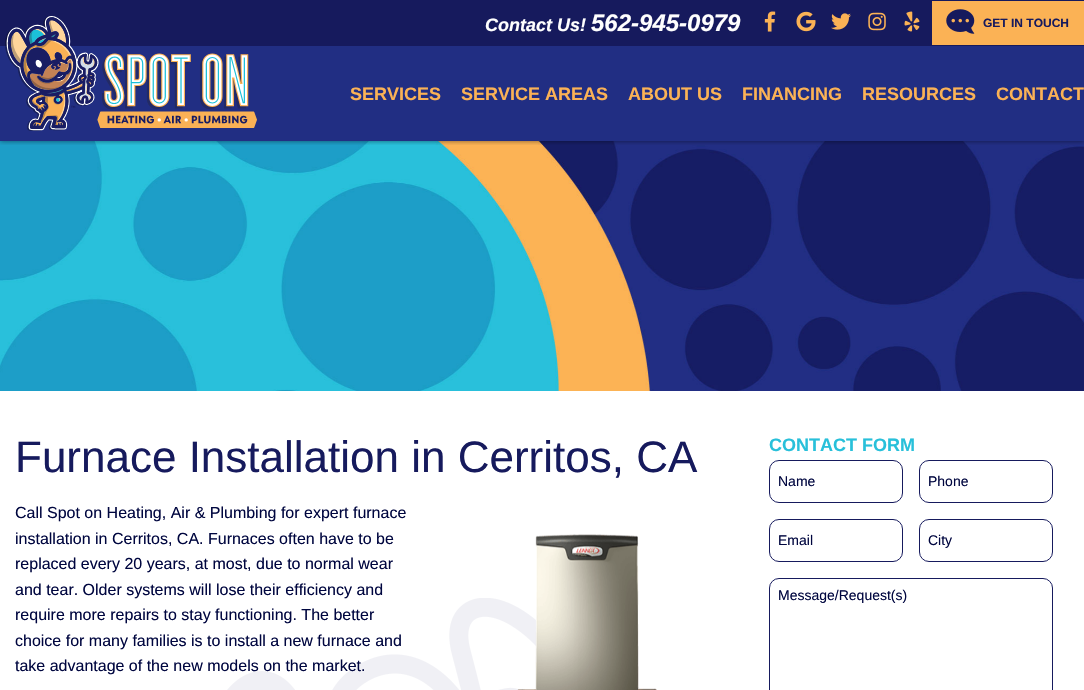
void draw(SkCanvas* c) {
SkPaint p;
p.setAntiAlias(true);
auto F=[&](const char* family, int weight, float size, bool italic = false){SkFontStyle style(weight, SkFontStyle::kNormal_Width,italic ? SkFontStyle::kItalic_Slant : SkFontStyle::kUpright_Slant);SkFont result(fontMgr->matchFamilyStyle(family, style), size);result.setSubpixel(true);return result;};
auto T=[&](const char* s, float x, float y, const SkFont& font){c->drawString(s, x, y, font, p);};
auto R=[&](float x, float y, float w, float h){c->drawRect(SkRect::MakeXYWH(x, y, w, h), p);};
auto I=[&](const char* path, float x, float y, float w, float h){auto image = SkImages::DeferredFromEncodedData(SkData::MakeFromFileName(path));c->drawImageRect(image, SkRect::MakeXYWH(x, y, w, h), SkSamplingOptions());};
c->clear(0xff212e83);
I("8.png",0,141,1084,250);
c->save();
c->clipRect(SkRect::MakeXYWH(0,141,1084,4));
p.setColor(0x80000000);
p.setMaskFilter(SkMaskFilter::MakeBlur(kNormal_SkBlurStyle, 2.5));
c->drawRect(SkRect::MakeXYWH(0,0,1084,141),p);
p.setMaskFilter(nullptr);
c->restore();
p.setColor(0xff161a5d);
R(0,0,1084,46);
auto f1 = F("Liberation Sans",700,18,true);
p.setColor(0xffffffff);
T("Contact Us!",485,31,f1);
auto f2 = F("Liberation Sans",700,24,true);
T("562-945-0979",591,31,f2);
I("1.png",764,11,12,21);
I("2.png",796,11,20,21);
I("3.png",831,13,20,17);
I("4.png",868,12,18,19);
I("5.png",904,11,16,21);
p.setColor(0xfffbb255);
R(932,1,152,44);
I("6.png",946,9,29,25);
auto f3 = F("Liberation Sans",700,12);
p.setColor(0xff161a5d);
T("GET IN TOUCH",983,27,f3);
I("7.png",5,16,252,115);
auto f4 = F("Liberation Sans",700,18);
p.setColor(0xfffbb255);
T("SERVICES",350,100,f4);
T("SERVICE AREAS",461,100,f4);
T("ABOUT US",628,100,f4);
T("FINANCING",742,100,f4);
T("RESOURCES",862,100,f4);
T("CONTACT",996,100,f4);
p.setColor(0xffffffff);
R(0,391,1084,299);
auto f5 = F("Liberation Sans",400,44);
p.setColor(0xff161a5d);
T("Furnace Installation in Cerritos, CA",15,472,f5);
auto f6 = F("Liberation Sans",400,16);
p.setColor(0xff00063f);
T("Call Spot on Heating, Air & Plumbing for expert furnace",15,518,f6);
T("installation in Cerritos, CA. Furnaces often have to be",15,544,f6);
I("10.png",227,598,310,92);
I("9.png",517,534,140,156);
T("replaced every 20 years, at most, due to normal wear",15,569,f6);
T("and tear. Older systems will lose their efficiency and",15,595,f6);
T("require more repairs to stay functioning. The better",15,620,f6);
T("choice for many families is to install a new furnace and",15,646,f6);
T("take advantage of the new models on the market.",15,671,f6);
p.setColor(0xff28c0da);
T("CONTACT FORM",769,451,f4);
p.setStroke(true);
p.setStrokeWidth(1);
p.setColor(0xff161a5d);
c->drawRoundRect(SkRect::MakeXYWH(769.5,460.5,133,42),9.5,9.5,p);
auto f7 = F("Liberation Sans",400,14);
p.setStroke(false);
p.setColor(0xff00063f);
T("Name",778,486,f7);
p.setStroke(true);
p.setColor(0xff161a5d);
c->drawRoundRect(SkRect::MakeXYWH(919.5,460.5,133,42),9.5,9.5,p);
p.setStroke(false);
p.setColor(0xff00063f);
T("Phone",928,486,f7);
p.setStroke(true);
p.setColor(0xff161a5d);
c->drawRoundRect(SkRect::MakeXYWH(769.5,519.5,133,42),9.5,9.5,p);
p.setStroke(false);
p.setColor(0xff00063f);
T("Email",778,545,f7);
p.setStroke(true);
p.setColor(0xff161a5d);
c->drawRoundRect(SkRect::MakeXYWH(919.5,519.5,133,42),9.5,9.5,p);
p.setStroke(false);
p.setColor(0xff00063f);
T("City",928,545,f7);
p.setStroke(true);
p.setColor(0xff161a5d);
c->drawRoundRect(SkRect::MakeXYWH(769.5,578.5,283,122),9.5,9.5,p);
p.setStroke(false);
p.setColor(0xff00063f);
T("Message/Request(s)",778,600,f7);
}
